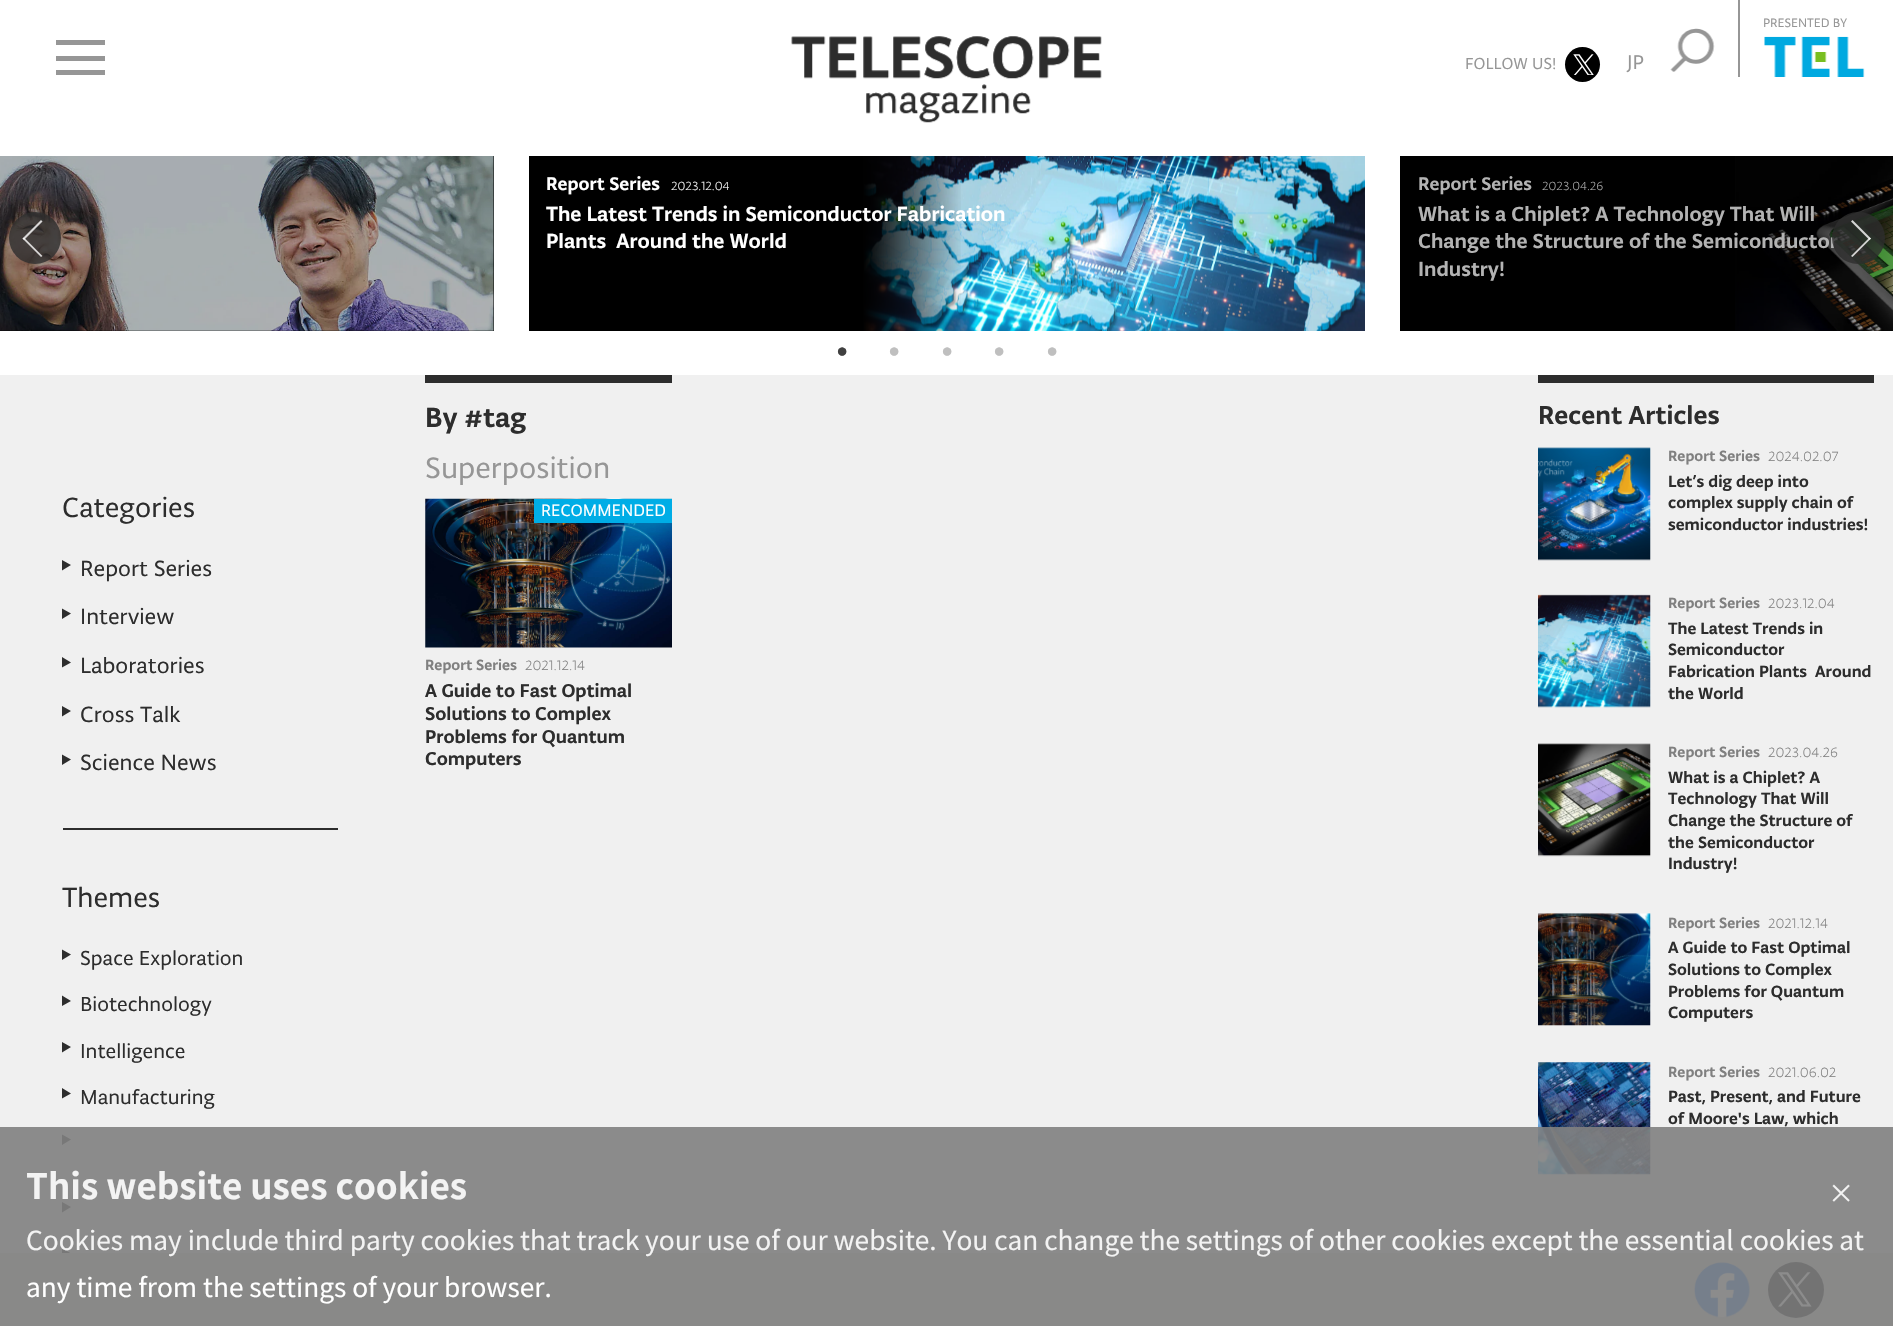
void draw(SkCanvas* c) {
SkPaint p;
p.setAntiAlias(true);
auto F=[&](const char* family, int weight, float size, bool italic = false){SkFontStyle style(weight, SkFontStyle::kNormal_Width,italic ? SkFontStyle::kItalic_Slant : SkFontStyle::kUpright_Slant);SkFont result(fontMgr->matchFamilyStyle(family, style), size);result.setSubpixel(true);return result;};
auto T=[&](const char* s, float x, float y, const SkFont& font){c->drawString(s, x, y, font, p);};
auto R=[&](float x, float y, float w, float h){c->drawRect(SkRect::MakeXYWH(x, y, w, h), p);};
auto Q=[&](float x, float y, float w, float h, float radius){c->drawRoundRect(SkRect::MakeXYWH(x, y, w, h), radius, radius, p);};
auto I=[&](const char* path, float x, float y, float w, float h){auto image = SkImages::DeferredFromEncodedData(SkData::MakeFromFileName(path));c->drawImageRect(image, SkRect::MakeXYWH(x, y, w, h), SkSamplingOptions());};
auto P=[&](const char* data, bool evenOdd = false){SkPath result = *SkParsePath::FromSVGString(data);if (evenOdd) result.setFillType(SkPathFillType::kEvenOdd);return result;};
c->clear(0xfff0f0f0);
p.setColor(0xffffffff);
R(0,0,1893,375);
p.setColor(0xff969696);
R(56,56,49,5);
R(56,40,49,5);
R(56,70,49,5);
I("1.png",791,36,311,87);
R(1738,0,2,77);
auto f1 = F("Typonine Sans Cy",400,13);
T("PRESENTED BY",1763,27,f1);
I("2.png",1764,36,101,41);
auto f2 = F("Typonine Sans Cy",400,17);
T("FOLLOW US!",1465,69,f2);
p.setColor(0xff000000);
c->drawCircle(1582.5,64.5,17.5,p);
I("3.png",1573,54,21,21);
auto f3 = F("Typonine Sans Cy",400,21);
p.setColor(0xff969696);
T("JP",1627,69,f3);
I("4.png",1670,28,45,44);
p.setColor(0xff000000);
R(0,156,494,175);
I("5.png",0,156,494,175);
p.setColor(0xcc2d2d2d);
c->drawCircle(35,238,26,p);
p.setColor(0xccffffff);
c->drawPath(P("M41 257l-18.5-18.5l1.5-1l18.5 18.5z"),p);
c->drawPath(P("M24 240l-1.5-1.5l18.5-18.5l1.5 1.5z"),p);
p.setColor(0xff000000);
R(529,156,334,175);
auto f4 = F("Typonine Sans Cy",500,19.5);
p.setColor(0xffffffff);
T("Report Series",546,190,f4);
auto f5 = F("Typonine Sans Cy",300,12.5);
T("2023.12.04",671,190,f5);
I("6.png",864,156,501,175);
{
const SkColor colors[] = {0xff000000,0x00000000,0x00000000};
const float stops[] = {0,.2,1};
const SkPoint ends[] = {{863,243}, {1365,243}};
p.setShader(SkGradientShader::MakeLinear(ends, colors, stops, 3, SkTileMode::kClamp));
p.setAlpha(255);
}
R(863,156,98,175);
auto f6 = F("Typonine Sans Cy",500,21.8);
p.setShader(nullptr);
p.setColor(0xffffffff);
T("The Latest Trends in Semiconductor Fabrication",546,221,f6);
T("Plants  Around the World",546,248,f6);
p.setColor(0xff000000);
R(1400,156,493,175);
I("7.png",1735,156,158,175);
{
const SkColor colors[] = {0xb3000000,0x00000000,0x00000000};
const float stops[] = {0,.2,1};
const SkPoint ends[] = {{1734,243}, {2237,243}};
p.setShader(SkGradientShader::MakeLinear(ends, colors, stops, 3, SkTileMode::kClamp));
p.setAlpha(255);
}
R(1735,207,96,124);
p.setShader(nullptr);
p.setColor(0xffb3b3b3);
T("Report Series",1418,190,f4);
T("2023.04.26",1542,190,f5);
T("What is a Chiplet? A Technology That Will",1418,221,f6);
T("Change the Structure of the Semiconductor",1418,248,f6);
T("Industry!",1418,276,f6);
p.setColor(0xcc2d2d2d);
Q(1832,212,53,52,26);
p.setColor(0xccffffff);
c->drawPath(P("M1852.5 220l18.5 18.5l-1.5 1.5l-18.5-18.5z"),p);
c->drawPath(P("M1869.5 237.5l1.5 1l-18.5 18.5l-1.5-1z"),p);
auto f7 = F("Typonine Sans Cy",400,35);
p.setColor(0xff404040);
T("•",835,361,f7);
p.setColor(0xffbfbfbf);
T("•",887,361,f7);
T("•",940,361,f7);
T("•",992,361,f7);
T("•",1045,361,f7);
auto f8 = F("Typonine Sans Cy",400,29.5);
p.setColor(0xff2d2d2d);
T("Categories",62,517,f8);
c->drawPath(P("M62 570.5v-10.5l9 5z"),p);
auto f9 = F("Typonine Sans Cy",400,23.5);
T("Report Series",80,576,f9);
c->drawPath(P("M62 619v-10.5l9 5z"),p);
T("Interview",80,624,f9);
c->drawPath(P("M62 667.5v-10.5l9 5.5z"),p);
T("Laboratories",80,673,f9);
c->drawPath(P("M62 716.5v-10.5l9 5z"),p);
T("Cross Talk",80,722,f9);
c->drawPath(P("M62 765v-10.5l9 5z"),p);
T("Science News",80,770,f9);
R(63,828,275,2);
T("Themes",62,907,f8);
c->drawPath(P("M62 960v-10.5l9 5z"),p);
auto f10 = F("Typonine Sans Cy",400,21.5);
T("Space Exploration",80,965,f10);
c->drawPath(P("M62 1006v-10.5l9 5.5z"),p);
T("Biotechnology",80,1011,f10);
c->drawPath(P("M62 1052.5v-10.5l9 5z"),p);
T("Intelligence",80,1058,f10);
c->drawPath(P("M62 1098.5v-10.5l9 5.5zm0 46.5v-10.5l9 5z"),p);
T("Manufacturing",80,1104,f10);
c->drawPath(P("M62 1212.5v-10.5l9 5zm0 46v-10.5l9 5.5z"),p);
R(425,375,247,8);
auto f11 = F("Typonine Sans Cy",500,29.5);
T("By #tag",425,427,f11);
auto f12 = F("Typonine Sans Cy",400,31.5);
p.setColor(0xff969696);
T("Superposition",425,478,f12);
I("8.png",425,498,247,150);
p.setColor(0xff00ade6);
R(534,499,138,24);
auto f13 = F("Typonine Sans Cy",400,17.5);
p.setColor(0xffffffff);
T("RECOMMENDED",541,516,f13);
auto f14 = F("Typonine Sans Cy",500,15.75);
p.setColor(0xff808080);
T("Report Series",425,670,f14);
auto f15 = F("Typonine Sans Cy",300,14.25);
T("2021.12.14",525,670,f15);
auto f16 = F("Typonine Sans Cy",500,19.75);
p.setColor(0xff2d2d2d);
T("A Guide to Fast Optimal",425,697,f16);
T("Solutions to Complex",425,720,f16);
T("Problems for Quantum",425,743,f16);
T("Computers",425,765,f16);
R(1538,375,336,8);
auto f17 = F("Typonine Sans Cy",500,27.5);
T("Recent Articles",1538,424,f17);
I("9.png",1538,447,113,114);
p.setColor(0xff808080);
T("Report Series",1668,461,f14);
T("2024.02.07",1768,461,f15);
auto f18 = F("Typonine Sans Cy",500,17.4);
p.setColor(0xff2d2d2d);
T("Let’s dig deep into",1668,487,f18);
T("complex supply chain of",1668,508,f18);
T("semiconductor industries!",1668,530,f18);
I("10.png",1538,594,113,114);
p.setColor(0xff808080);
T("Report Series",1668,608,f14);
T("2023.12.04",1768,608,f15);
p.setColor(0xff2d2d2d);
T("The Latest Trends in",1668,634,f18);
T("Semiconductor",1668,655,f18);
T("Fabrication Plants  Around",1668,677,f18);
T("the World",1668,699,f18);
I("11.png",1538,743,113,114);
p.setColor(0xff808080);
T("Report Series",1668,757,f14);
T("2023.04.26",1768,757,f15);
p.setColor(0xff2d2d2d);
T("What is a Chiplet? A",1668,783,f18);
T("Technology That Will",1668,804,f18);
T("Change the Structure of",1668,826,f18);
T("the Semiconductor",1668,848,f18);
T("Industry!",1668,869,f18);
I("12.png",1538,913,113,113);
p.setColor(0xff808080);
T("Report Series",1668,928,f14);
T("2021.12.14",1768,928,f15);
p.setColor(0xff2d2d2d);
T("A Guide to Fast Optimal",1668,953,f18);
T("Solutions to Complex",1668,975,f18);
T("Problems for Quantum",1668,997,f18);
T("Computers",1668,1018,f18);
I("13.png",1538,1062,113,113);
p.setColor(0xff808080);
T("Report Series",1668,1077,f14);
T("2021.06.02",1768,1077,f15);
p.setColor(0xff2d2d2d);
T("Past, Present, and Future",1668,1102,f18);
T("of Moore's Law, which",1668,1124,f18);
p.setColor(0xffd9d9d6);
R(0,1253,1893,73);
I("14.png",1694,1262,56,56);
p.setColor(0xff000000);
c->drawCircle(1796,1290,28,p);
I("15.png",1778,1272,34,35);
p.setColor(0xe6808080);
R(0,1127,1893,199);
auto f19 = F("Noto Sans JP",700,35);
p.setColor(0xfff3f3f3);
T("This website uses cookies",26,1199,f19);
auto f20 = F("Noto Sans JP",400,26.25);
T("×",1828,1203,f20);
T("Cookies may include third party cookies that track your use of our website. You can change the settings of other cookies except the essential cookies at",26,1250,f20);
p.setColor(0xffffffff);
T("any time from the settings of your browser.",26,1297,f20);
}
